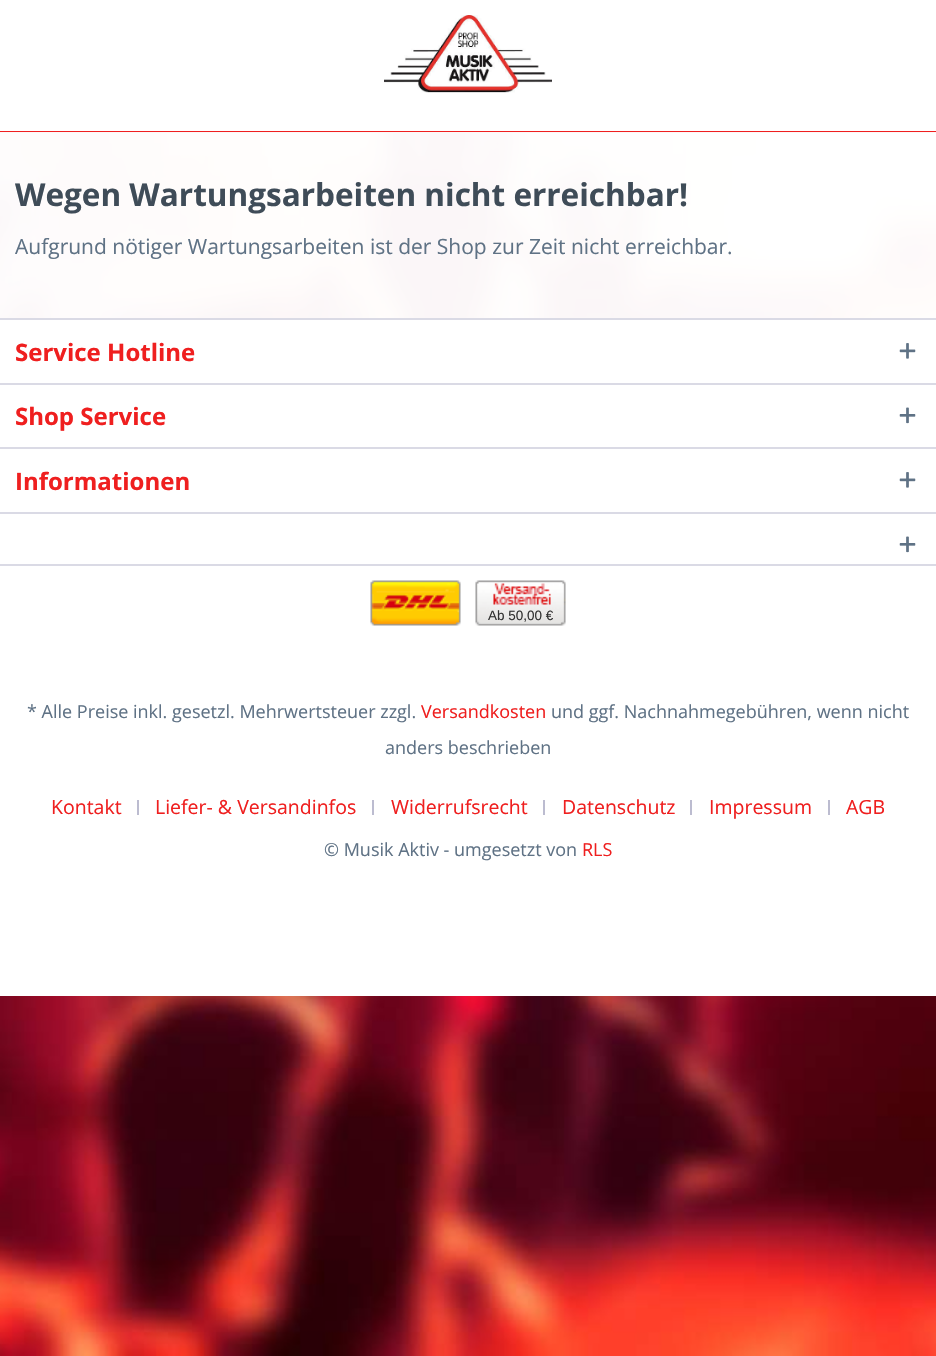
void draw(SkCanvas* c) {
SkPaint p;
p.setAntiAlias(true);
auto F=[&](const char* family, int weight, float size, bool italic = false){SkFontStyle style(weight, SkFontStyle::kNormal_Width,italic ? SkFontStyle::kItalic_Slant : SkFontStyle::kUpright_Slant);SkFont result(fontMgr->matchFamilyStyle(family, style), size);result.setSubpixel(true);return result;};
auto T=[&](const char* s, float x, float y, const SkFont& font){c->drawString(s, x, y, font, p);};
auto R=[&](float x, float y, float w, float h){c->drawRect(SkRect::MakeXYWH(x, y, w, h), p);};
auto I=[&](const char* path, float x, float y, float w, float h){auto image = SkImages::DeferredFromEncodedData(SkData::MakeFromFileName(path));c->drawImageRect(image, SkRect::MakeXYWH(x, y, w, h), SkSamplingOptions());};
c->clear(0xffffffff);
I("1.png",0,133,936,1223);
p.setColor(0xffef1f1f);
R(0,131,936,2);
I("2.png",384,15,168,78);
p.setColor(0xf5ffffff);
R(0,132,936,186);
auto f1 = F("Open Sans",700,31.5);
p.setColor(0xff3f4c58);
T("Wegen Wartungsarbeiten nicht erreichbar!",15,206,f1);
auto f2 = F("Open Sans",400,21);
p.setColor(0xff5f7285);
T("Aufgrund nötiger Wartungsarbeiten ist der Shop zur Zeit nicht erreichbar.",15,254,f2);
p.setColor(0xffffffff);
R(0,320,936,676);
p.setColor(0xffdadae5);
R(0,318,936,2);
auto f3 = F("Open Sans",700,24);
p.setColor(0xffef1f1f);
T("Service Hotline",15,361,f3);
I("3.png",899,343,17,16);
p.setColor(0xffdadae5);
R(0,383,936,2);
p.setColor(0xffef1f1f);
T("Shop Service",15,425,f3);
I("4.png",899,407,17,17);
p.setColor(0xffdadae5);
R(0,447,936,2);
p.setColor(0xffef1f1f);
T("Informationen",15,490,f3);
I("3.png",899,472,17,16);
p.setColor(0xffdadae5);
R(0,512,936,2);
R(0,564,936,2);
I("4.png",899,536,17,17);
I("5.png",370,580,91,46);
I("6.png",475,580,91,46);
auto f4 = F("Liberation Sans",400,13.5);
p.setColor(0xff333333);
T("Ab 50,00 €",488,620,f4);
auto f5 = F("Open Sans",400,18);
p.setColor(0xff5f7285);
T("* Alle Preise inkl. gesetzl. Mehrwertsteuer zzgl.",27,718,f5);
p.setColor(0xffef1f1f);
T("Versandkosten",421,718,f5);
p.setColor(0xff5f7285);
T("und ggf. Nachnahmegebühren, wenn nicht",551,718,f5);
T("anders beschrieben",385,754,f5);
auto f6 = F("Open Sans",400,19.5);
p.setColor(0xffef1f1f);
T("Kontakt",51,814,f6);
p.setColor(0xffbcbcd0);
R(137,800,2,15);
p.setColor(0xffef1f1f);
T("Liefer- & Versandinfos",155,814,f6);
p.setColor(0xffbcbcd0);
R(372,800,2,15);
p.setColor(0xffef1f1f);
T("Widerrufsrecht",391,814,f6);
p.setColor(0xffbcbcd0);
R(543,800,2,15);
p.setColor(0xffef1f1f);
T("Datenschutz",562,814,f6);
p.setColor(0xffbcbcd0);
R(690,800,2,15);
p.setColor(0xffef1f1f);
T("Impressum",709,814,f6);
p.setColor(0xffbcbcd0);
R(828,800,2,15);
p.setColor(0xffef1f1f);
T("AGB",846,814,f6);
p.setColor(0xff5f7285);
T("© Musik Aktiv - umgesetzt von",324,856,f5);
p.setColor(0xffef1f1f);
T("RLS",582,856,f5);
}
